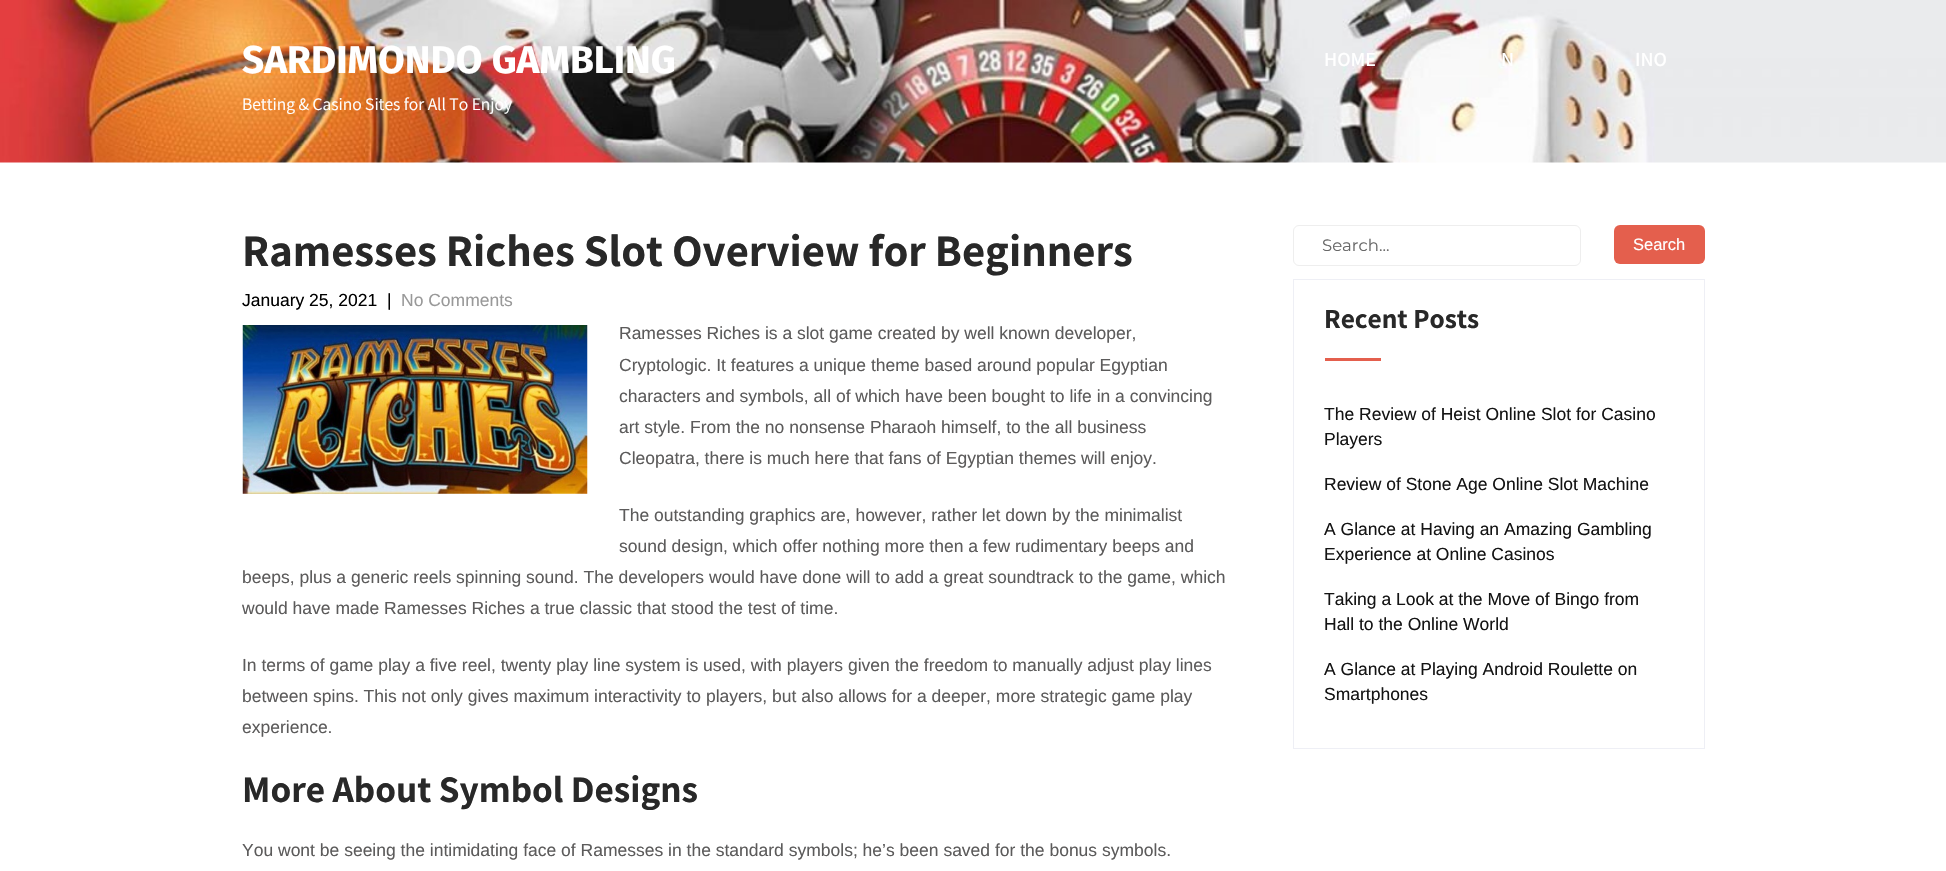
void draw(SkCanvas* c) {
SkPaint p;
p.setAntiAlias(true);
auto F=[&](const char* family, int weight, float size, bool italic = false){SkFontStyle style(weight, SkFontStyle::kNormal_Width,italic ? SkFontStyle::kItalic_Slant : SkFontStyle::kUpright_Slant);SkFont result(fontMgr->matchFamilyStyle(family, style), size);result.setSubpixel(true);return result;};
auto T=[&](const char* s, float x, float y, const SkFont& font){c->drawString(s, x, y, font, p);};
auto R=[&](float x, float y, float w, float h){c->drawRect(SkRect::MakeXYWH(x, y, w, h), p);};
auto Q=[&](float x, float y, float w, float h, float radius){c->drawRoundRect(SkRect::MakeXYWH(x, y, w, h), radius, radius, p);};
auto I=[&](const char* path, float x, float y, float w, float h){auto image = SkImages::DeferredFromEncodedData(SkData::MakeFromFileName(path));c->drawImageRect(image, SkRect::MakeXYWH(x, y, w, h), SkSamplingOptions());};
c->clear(0xffffffff);
I("1.png",0,0,1946,163);
auto f1 = F("Fira Sans",700,38.75);
p.setColor(0xffffffff);
T("SARDIMONDO GAMBLING",242,73,f1);
auto f2 = F("Assistant",400,17.5);
T("Betting & Casino Sites for All To Enjoy",242,110,f2);
auto f3 = F("Assistant",600,20);
T("HOME",1324,66,f3);
T("N",1501,66,f3);
T("INO",1635,66,f3);
auto f4 = F("Assistant",700,45);
p.setColor(0xff282828);
T("Ramesses Riches Slot Overview for Beginners",242,266,f4);
auto f5 = F("Liberation Sans",400,17.5);
p.setColor(0xff000000);
T("January 25, 2021",242,306,f5);
T("|",387,306,f5);
p.setColor(0xff999999);
T("No Comments",401,306,f5);
I("2.png",242,325,346,169);
p.setColor(0xff5c5b5b);
T("Ramesses Riches is a slot game created by well known developer,",619,339,f5);
T("Cryptologic. It features a unique theme based around popular Egyptian",619,371,f5);
T("characters and symbols, all of which have been bought to life in a convincing",619,402,f5);
T("art style. From the no nonsense Pharaoh himself, to the all business",619,433,f5);
T("Cleopatra, there is much here that fans of Egyptian themes will enjoy.",619,464,f5);
T("The outstanding graphics are, however, rather let down by the minimalist",619,521,f5);
T("sound design, which offer nothing more then a few rudimentary beeps and",619,552,f5);
T("beeps, plus a generic reels spinning sound. The developers would have done will to add a great soundtrack to the game, which",242,583,f5);
T("would have made Ramesses Riches a true classic that stood the test of time.",242,614,f5);
T("In terms of game play a five reel, twenty play line system is used, with players given the freedom to manually adjust play lines",242,671,f5);
T("between spins. This not only gives maximum interactivity to players, but also allows for a deeper, more strategic game play",242,702,f5);
T("experience.",242,733,f5);
auto f6 = F("Assistant",700,37.5);
p.setColor(0xff282828);
T("More About Symbol Designs",242,802,f6);
p.setColor(0xff5c5b5b);
T("You wont be seeing the intimidating face of Ramesses in the standard symbols; he’s been saved for the bonus symbols.",242,856,f5);
p.setStroke(true);
p.setStrokeWidth(1);
p.setColor(0xffeeeeee);
c->drawRoundRect(SkRect::MakeXYWH(1293.5,225.5,287,40),5.5,5.5,p);
auto f7 = F("Montserrat",400,16.5);
p.setStroke(false);
p.setColor(0xff686868);
T("Search...",1322,251,f7);
p.setColor(0xffe45f4d);
Q(1614,225,91,39,6);
auto f8 = F("Liberation Sans",400,16.5);
p.setColor(0xffffffff);
T("Search",1633,250,f8);
p.setColor(0xffeeeff5);
R(1293,279,412,1);
R(1704,279,1,470);
R(1293,279,1,112);
auto f9 = F("Assistant",700,27.5);
p.setColor(0xff282828);
T("Recent Posts",1324,328,f9);
p.setColor(0xffe45f4d);
R(1325,358,56,3);
p.setColor(0xffeeeff5);
R(1293,748,412,1);
R(1293,391,1,358);
p.setColor(0xff141414);
T("The Review of Heist Online Slot for Casino",1324,420,f5);
T("Players",1324,445,f5);
T("Review of Stone Age Online Slot Machine",1324,490,f5);
T("A Glance at Having an Amazing Gambling",1324,535,f5);
T("Experience at Online Casinos",1324,560,f5);
T("Taking a Look at the Move of Bingo from",1324,605,f5);
T("Hall to the Online World",1324,630,f5);
T("A Glance at Playing Android Roulette on",1324,675,f5);
T("Smartphones",1324,700,f5);
}
